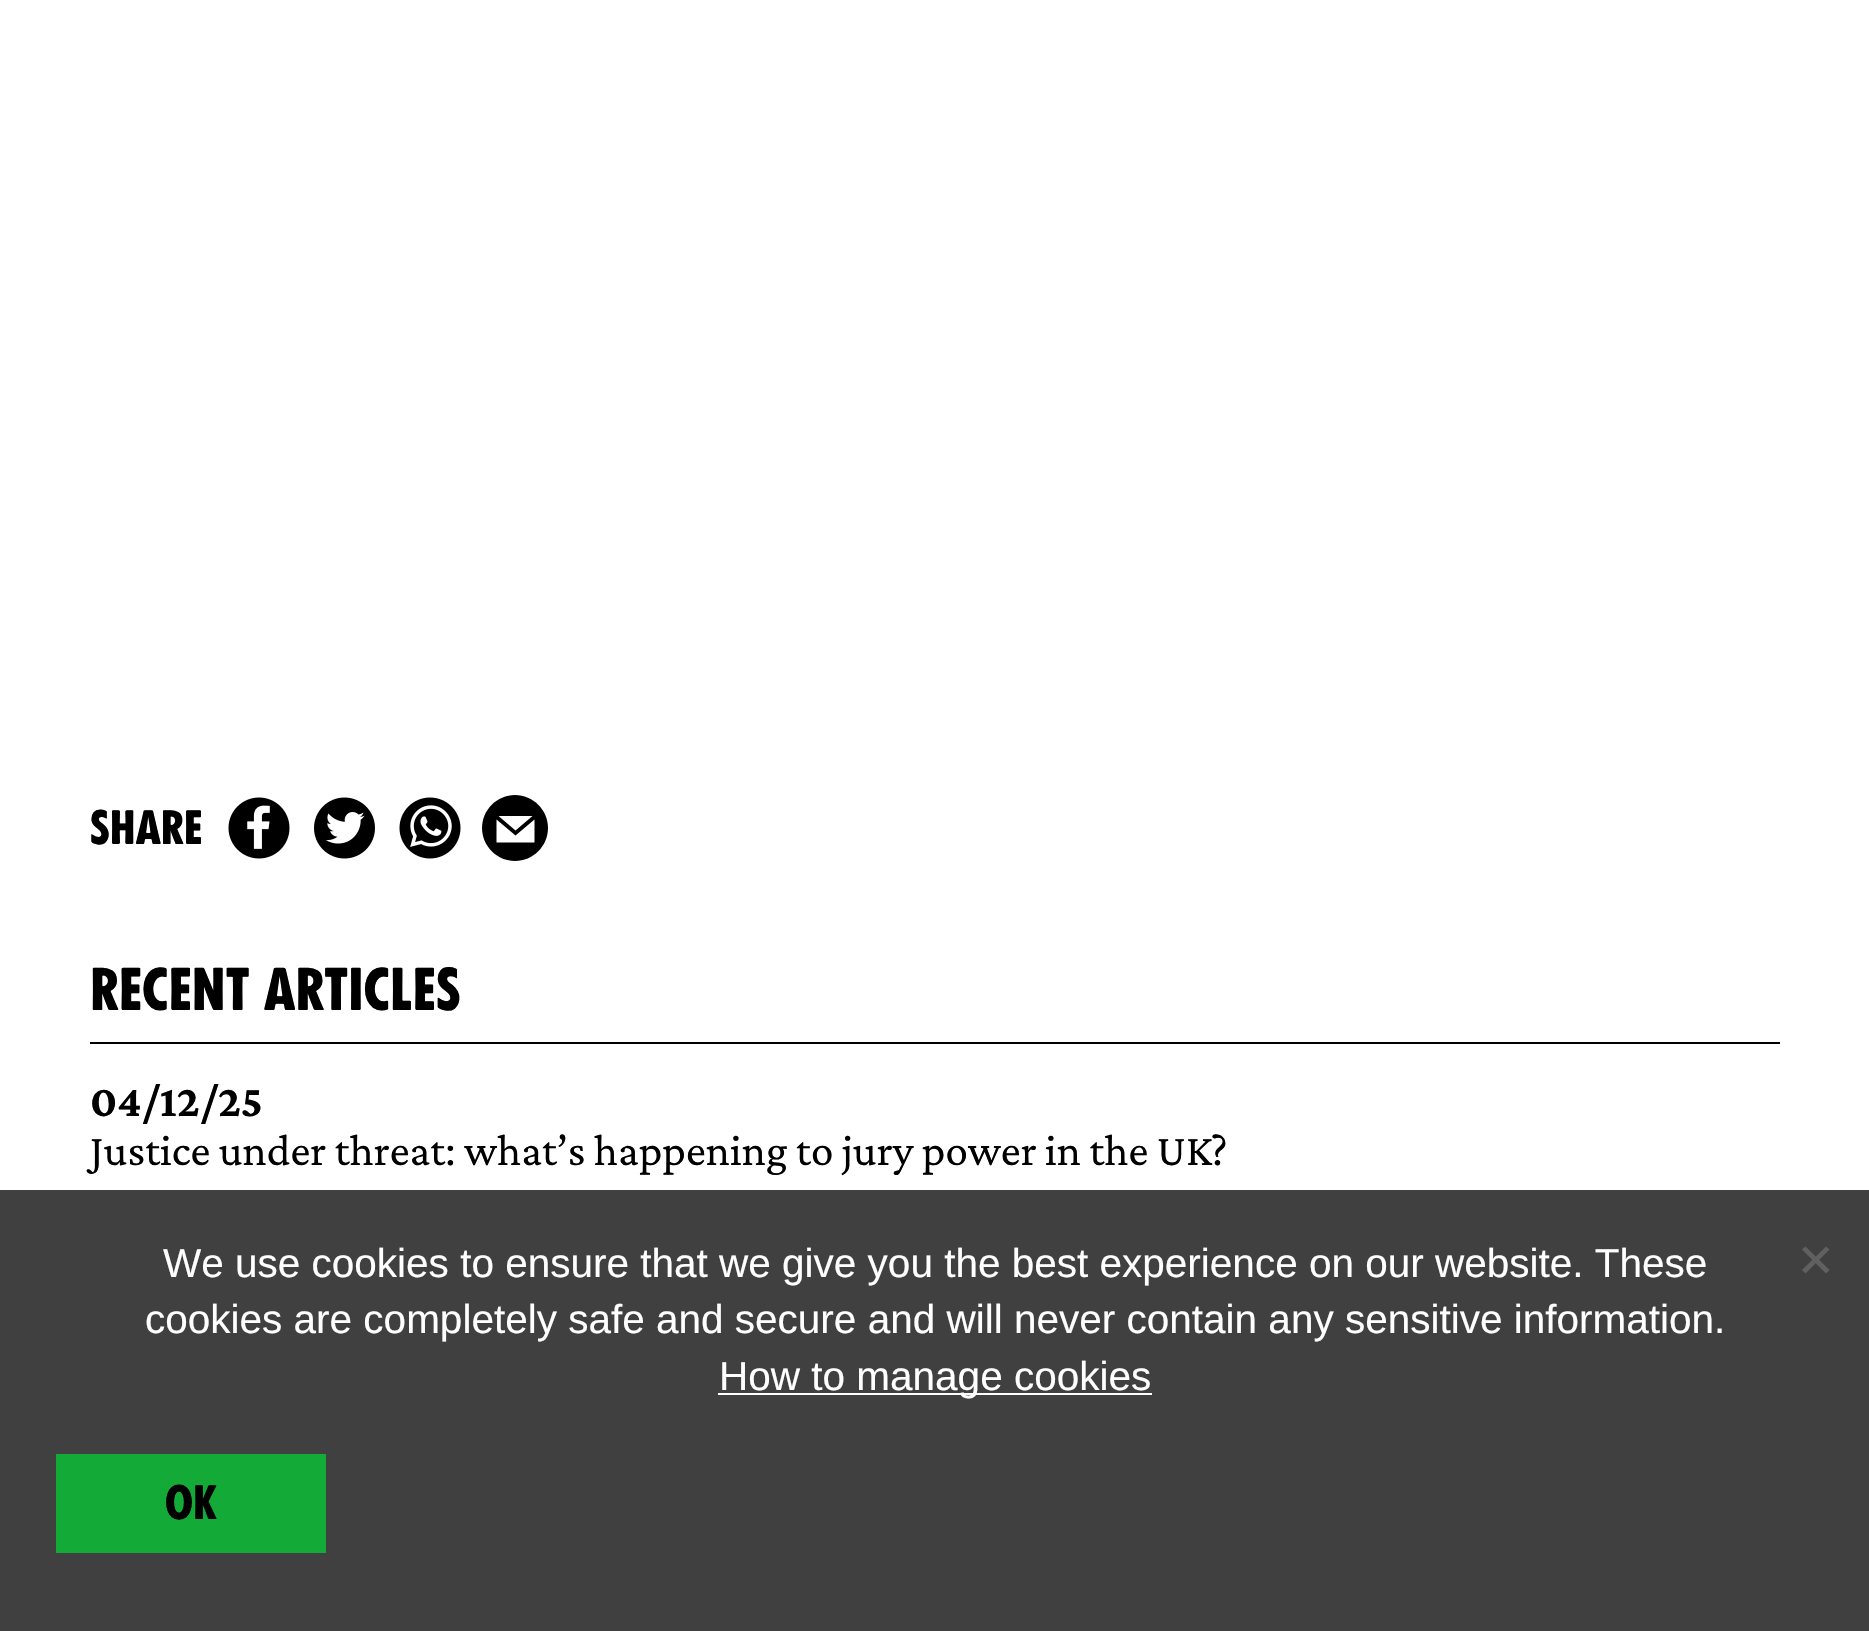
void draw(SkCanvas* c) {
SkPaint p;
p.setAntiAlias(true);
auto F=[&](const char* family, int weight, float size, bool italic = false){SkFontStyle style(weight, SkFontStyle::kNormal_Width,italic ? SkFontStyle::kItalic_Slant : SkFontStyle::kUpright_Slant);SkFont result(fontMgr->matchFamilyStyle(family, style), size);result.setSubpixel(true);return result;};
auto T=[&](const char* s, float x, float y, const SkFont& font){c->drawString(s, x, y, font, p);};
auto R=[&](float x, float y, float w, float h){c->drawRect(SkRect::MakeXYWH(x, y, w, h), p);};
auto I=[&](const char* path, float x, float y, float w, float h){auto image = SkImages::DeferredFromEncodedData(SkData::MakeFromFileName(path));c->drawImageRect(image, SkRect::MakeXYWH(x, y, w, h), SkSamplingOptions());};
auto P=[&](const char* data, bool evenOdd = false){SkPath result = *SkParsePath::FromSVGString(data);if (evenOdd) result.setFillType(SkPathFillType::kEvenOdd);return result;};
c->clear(0xffffffff);
auto f1 = F("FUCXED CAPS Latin",400,45);
p.setColor(0xff000000);
T("share",90,844,f1);
I("1.png",228,797,62,62);
I("2.png",314,797,61,62);
I("3.png",399,797,62,62);
c->drawPath(P("M548 828c0-18-15-33-33-33c-18 0-33 15-33 33c0 18 15 33 33 33c18 0 33-15 33-33z"),p);
p.setColor(0xffffffff);
c->drawPath(P("M532.5 816h-34l17 14.5z"),p);
c->drawPath(P("M515.5 835.5l-19-16v23h38v-23z"),p);
auto f2 = F("FUCXED CAPS Latin",400,56.25);
p.setColor(0xff000000);
T("recent articles",90,1010,f2);
R(90,1042,1690,2);
auto f3 = F("Crimson Pro",700,45);
T("04/12/25",90,1116,f3);
auto f4 = F("Crimson Pro",400,45);
T("Justice under threat: what’s happening to jury power in the UK?",90,1165,f4);
p.setColor(0xff404040);
R(0,1190,1869,441);
auto f5 = F("Liberation Sans",400,40.5);
p.setColor(0xffffffff);
T("We use cookies to ensure that we give you the best experience on our website. These",163,1277,f5);
T("cookies are completely safe and secure and will never contain any sensitive information.",145,1333,f5);
R(718,1393,434,2);
T("How to manage cookies",719,1390,f5);
p.setColor(0xff606060);
c->drawPath(P("M1826 1246.5l3.5 3l-24 24l-3.5-3.5z"),p);
c->drawPath(P("M1802 1249.5l3.5-3l24 23.5l-3.5 3.5z"),p);
p.setColor(0xff14aa37);
R(56,1454,270,99);
p.setColor(0xff000000);
T("OK",165,1519,f1);
}
